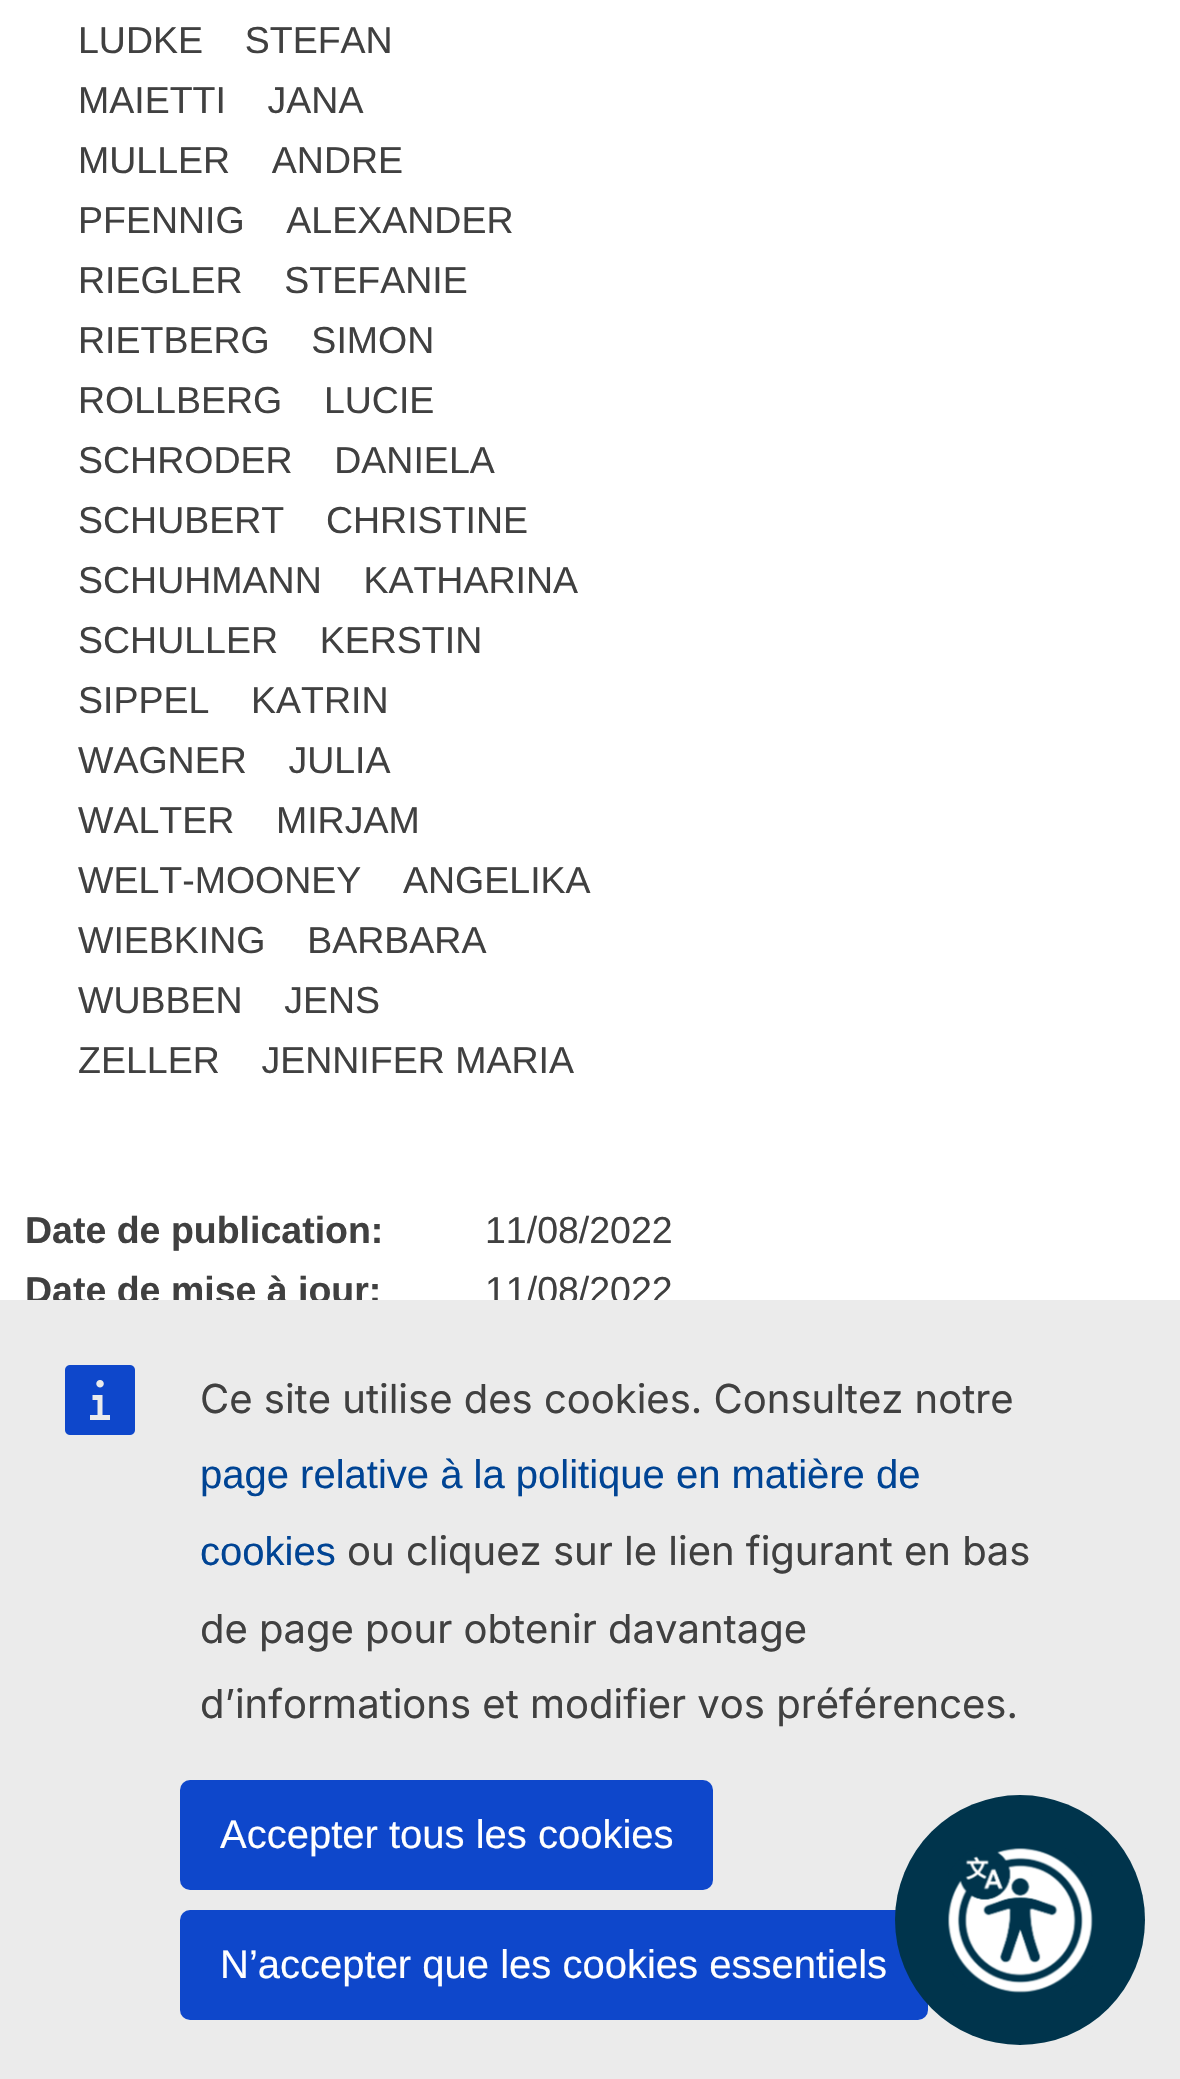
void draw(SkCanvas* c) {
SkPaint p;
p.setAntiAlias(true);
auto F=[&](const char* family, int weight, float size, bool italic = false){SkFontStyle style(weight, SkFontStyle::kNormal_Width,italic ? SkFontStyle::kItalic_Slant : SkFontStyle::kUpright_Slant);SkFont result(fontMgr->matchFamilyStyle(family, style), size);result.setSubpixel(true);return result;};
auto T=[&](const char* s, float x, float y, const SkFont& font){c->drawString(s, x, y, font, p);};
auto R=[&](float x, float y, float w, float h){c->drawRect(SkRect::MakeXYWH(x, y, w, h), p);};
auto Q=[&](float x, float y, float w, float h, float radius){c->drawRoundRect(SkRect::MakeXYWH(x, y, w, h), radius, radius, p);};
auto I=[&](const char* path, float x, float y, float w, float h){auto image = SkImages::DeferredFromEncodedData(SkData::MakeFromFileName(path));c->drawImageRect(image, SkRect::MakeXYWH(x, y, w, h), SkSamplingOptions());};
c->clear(0xffffffff);
auto f1 = F("Liberation Sans",400,37.5);
p.setColor(0xff404040);
T("LUDKE    STEFAN",78,53,f1);
T("MAIETTI    JANA",78,113,f1);
T("MULLER    ANDRE",78,173,f1);
T("PFENNIG    ALEXANDER",78,233,f1);
T("RIEGLER    STEFANIE",78,293,f1);
T("RIETBERG    SIMON",78,353,f1);
T("ROLLBERG    LUCIE",78,413,f1);
T("SCHRODER    DANIELA",78,473,f1);
T("SCHUBERT    CHRISTINE",78,533,f1);
T("SCHUHMANN    KATHARINA",78,593,f1);
T("SCHULLER    KERSTIN",78,653,f1);
T("SIPPEL    KATRIN",78,713,f1);
T("WAGNER    JULIA",78,773,f1);
T("WALTER    MIRJAM",78,833,f1);
T("WELT-MOONEY    ANGELIKA",78,893,f1);
T("WIEBKING    BARBARA",78,953,f1);
T("WUBBEN    JENS",78,1013,f1);
T("ZELLER    JENNIFER MARIA",78,1073,f1);
auto f2 = F("Liberation Sans",700,37.5);
T("Date de publication:",25,1243,f2);
T("11/08/2022",485,1243,f1);
T("Date de mise à jour:",25,1303,f2);
T("11/08/2022",485,1303,f1);
p.setColor(0xffebebeb);
R(0,1300,1180,779);
p.setColor(0xff0e47cb);
Q(180,1910,748,110,10);
p.setColor(0xff00344c);
c->drawCircle(1020,1920,125,p);
I("1.png",948,1848,145,145);
I("2.png",65,1365,70,70);
auto f3 = F("Inter",400,40);
p.setColor(0xff404040);
T("Ce site utilise des cookies. Consultez notre",200,1413,f3);
auto f4 = F("Liberation Sans",400,40);
p.setColor(0xff004494);
T("page relative à la politique en matière de",200,1488,f4);
T("cookies",200,1565,f4);
p.setColor(0xff404040);
T("ou cliquez sur le lien figurant en bas",347,1565,f3);
T("de page pour obtenir davantage",200,1643,f3);
T("d’informations et modifier vos préférences.",200,1718,f3);
p.setColor(0xff0e47cb);
Q(180,1780,533,110,10);
p.setColor(0xffffffff);
T("Accepter tous les cookies",220,1848,f4);
T("N’accepter que les cookies essentiels",220,1978,f4);
}
